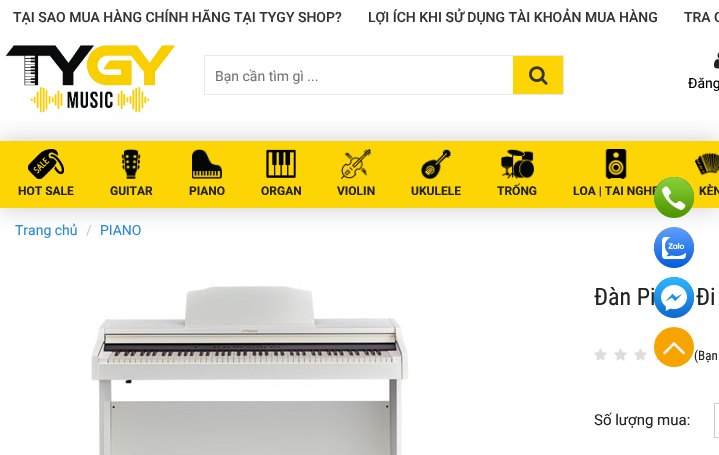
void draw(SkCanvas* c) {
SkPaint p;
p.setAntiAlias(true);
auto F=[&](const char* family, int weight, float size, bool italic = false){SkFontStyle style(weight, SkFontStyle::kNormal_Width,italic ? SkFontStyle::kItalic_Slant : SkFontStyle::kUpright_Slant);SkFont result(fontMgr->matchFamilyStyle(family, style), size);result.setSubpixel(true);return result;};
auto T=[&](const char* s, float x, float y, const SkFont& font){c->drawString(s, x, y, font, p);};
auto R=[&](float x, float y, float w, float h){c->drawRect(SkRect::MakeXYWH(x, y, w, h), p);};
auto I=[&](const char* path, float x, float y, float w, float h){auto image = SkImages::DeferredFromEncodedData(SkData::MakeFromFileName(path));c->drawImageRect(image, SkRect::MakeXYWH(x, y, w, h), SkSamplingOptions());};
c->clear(0xffffffff);
auto f1 = F("Roboto",500,14);
p.setColor(0xff333333);
T("TẠI SAO MUA HÀNG CHÍNH HÃNG TẠI TYGY SHOP?",13,22,f1);
T("LỢI ÍCH KHI SỬ DỤNG TÀI KHOẢN MUA HÀNG",368,22,f1);
T("TRA C",684,22,f1);
I("1.png",5,45,171,68);
p.setStroke(true);
p.setStrokeWidth(1);
p.setColor(0xffe8e8e8);
c->drawRect(SkRect::MakeXYWH(204.5,55.5,359,39),p);
auto f2 = F("Roboto",400,14);
p.setStroke(false);
p.setColor(0xff757575);
T("Bạn cần tìm gì ...",215,81,f2);
p.setColor(0xfffdd504);
R(513,56,50,38);
I("2.png",529,66,19,19);
I("3.png",714,52,5,17);
p.setColor(0xff000000);
T("Đăng",688,88,f2);
p.setColor(0x33000000);
p.setMaskFilter(SkMaskFilter::MakeBlur(kNormal_SkBlurStyle, 12.5));
c->drawRect(SkRect::MakeXYWH(0,141,719,67),p);
p.setMaskFilter(nullptr);
p.setColor(0xfffdd504);
R(0,141,719,67);
auto f3 = F("Roboto",700,12);
p.setColor(0xff222222);
T("LOA | TAI NGHE",573,195,f3);
p.setColor(0xff0068ff);
c->drawCircle(674,197,20,p);
I("4.png",654,177,40,32);
I("5.png",654,185,40,33);
p.setColor(0xfff7a400);
c->drawCircle(674,247,20,p);
I("6.png",654,227,40,32);
I("7.png",654,236,40,32);
auto f4 = F("Roboto Condensed",400,24);
p.setColor(0xff222222);
T("Đàn Pi",594,305,f4);
p.setColor(0xff0068ff);
c->drawCircle(674,297,20,p);
I("8.png",654,277,40,32);
I("9.png",654,284,40,34);
I("22.png",654,352,5,9);
p.setColor(0xfff7a400);
c->drawCircle(674,347,20,p);
I("10.png",663,342,22,13);
I("11.png",28,149,36,30);
p.setColor(0xff222222);
T("HOT SALE",18,195,f3);
I("12.png",121,149,20,30);
T("GUITAR",110,195,f3);
I("13.png",192,149,30,30);
T("PIANO",189,195,f3);
I("14.png",266,149,30,29);
T("ORGAN",261,195,f3);
I("15.png",341,149,30,30);
T("VIOLIN",337,195,f3);
I("16.png",421,149,30,30);
T("UKULELE",411,195,f3);
I("17.png",501,149,33,30);
T("TRỐNG",497,195,f3);
I("18.png",605,149,22,30);
I("19.png",695,152,24,24);
T("KÈN",699,195,f3);
p.setColor(0xff288ad6);
T("Trang chủ",15,235,f2);
p.setColor(0xffcccccc);
T("/",86,235,f2);
p.setColor(0xff288ad6);
T("PIANO",100,235,f2);
I("20.png",15,282,500,173);
p.setColor(0xff222222);
T("Đi",696,305,f4);
I("21.png",594,348,13,13);
I("21.png",614,348,13,13);
I("21.png",634,348,13,13);
auto f5 = F("Roboto Condensed",400,13);
T("(Bạn",694,360,f5);
auto f6 = F("Roboto",400,15);
T("Số lượng mua:",594,425,f6);
p.setStroke(true);
p.setColor(0xffcccccc);
c->drawRect(SkRect::MakeXYWH(714.5,403.5,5,34),p);
}
